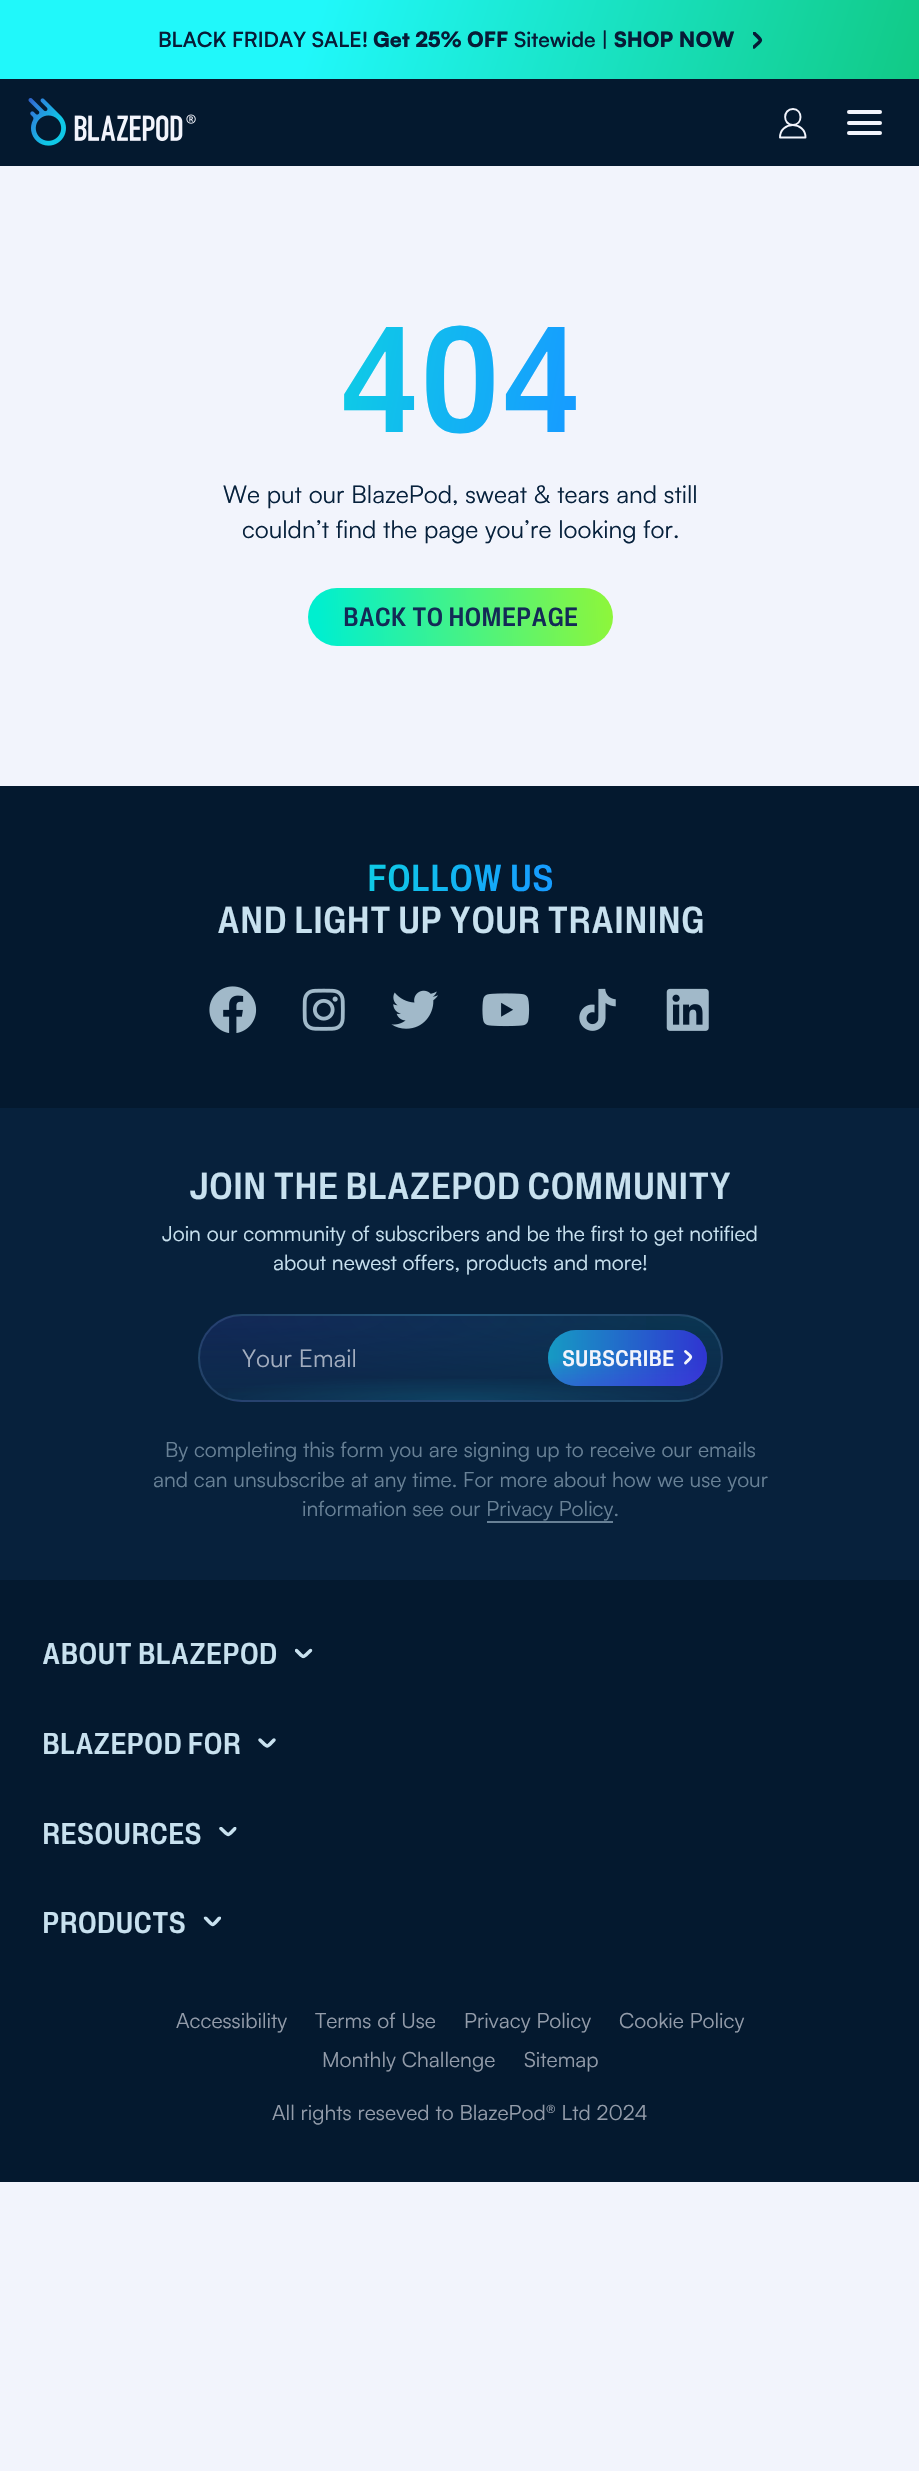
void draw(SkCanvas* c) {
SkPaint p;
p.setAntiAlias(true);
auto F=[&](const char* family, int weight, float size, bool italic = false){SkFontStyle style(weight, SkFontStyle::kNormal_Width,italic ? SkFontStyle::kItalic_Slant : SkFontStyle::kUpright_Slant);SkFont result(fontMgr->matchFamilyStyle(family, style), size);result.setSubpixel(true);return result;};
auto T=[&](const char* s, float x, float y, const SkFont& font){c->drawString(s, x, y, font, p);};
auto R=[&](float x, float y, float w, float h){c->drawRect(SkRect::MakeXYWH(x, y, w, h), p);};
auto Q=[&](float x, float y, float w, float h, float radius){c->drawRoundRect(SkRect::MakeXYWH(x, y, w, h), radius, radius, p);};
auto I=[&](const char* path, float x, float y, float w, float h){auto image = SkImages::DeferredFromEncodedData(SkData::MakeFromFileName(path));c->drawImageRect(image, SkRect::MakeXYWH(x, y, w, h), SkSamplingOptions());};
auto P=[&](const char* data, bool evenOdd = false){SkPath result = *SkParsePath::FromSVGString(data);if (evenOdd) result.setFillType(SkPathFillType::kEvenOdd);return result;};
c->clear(0xfff2f4fc);
{
const SkColor colors[] = {0xff20f8fa,0xff05a324};
const float stops[] = {.22,1};
const SkPoint ends[] = {{31,-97}, {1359,325}};
p.setShader(SkGradientShader::MakeLinear(ends, colors, stops, 2, SkTileMode::kClamp));
p.setAlpha(255);
}
R(0,0,919,79);
auto f1 = F("Satoshi",600,21);
p.setShader(nullptr);
p.setColor(0xff071b36);
T("BLACK FRIDAY SALE!",158,47,f1);
auto f2 = F("Satoshi",900,21);
T("Get 25% OFF",373,47,f2);
T("Sitewide |",514,47,f1);
T("SHOP NOW",614,47,f2);
c->save();
c->clipRect(SkRect::MakeXYWH(753,32,10,17));
p.setStroke(true);
p.setStrokeWidth(3.5);
p.setStrokeCap(SkPaint::kRound_Cap);
c->drawPath(P("M754 33c8.5 8.5 8.5 6 0 14"),p);
c->restore();
p.setStroke(false);
p.setColor(0xff04192f);
R(0,79,919,87);
I("1.png",28,98,168,48);
p.setStroke(true);
p.setStrokeWidth(1.9);
p.setStrokeJoin(SkPaint::kRound_Join);
p.setColor(0xfff2f4fc);
c->drawPath(P("M780 137.5c0-16.5 25.5-16.5 25.5 0zm13-28.5c10 0 10 16 0 16c-10.5 0-10.5-16 0-16z"),p);
p.setStroke(false);
Q(847,121,35,4,2);
Q(847,110,35,4,2);
Q(847,131,35,4,2);
auto f3 = F("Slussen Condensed",600,140);
{
const SkColor colors[] = {0xff0fc9e7,0xff169dff};
const float stops[] = {.08,.91};
const SkPoint ends[] = {{330,361}, {591,408}};
p.setShader(SkGradientShader::MakeLinear(ends, colors, stops, 2, SkTileMode::kClamp));
p.setAlpha(255);
}
T("404",339,432,f3);
auto f4 = F("Satoshi",400,24.5);
p.setShader(nullptr);
p.setColor(0xff07213c);
T("We put our BlazePod, sweat & tears and still",223,503,f4);
T("couldn’t find the page you’re looking for.",242,538,f4);
{
const SkColor colors[] = {0xffb9f80d,0xff00efcf};
const float stops[] = {0,.97};
const SkPoint ends[] = {{702,598}, {307,629}};
p.setShader(SkGradientShader::MakeLinear(ends, colors, stops, 2, SkTileMode::kClamp));
p.setAlpha(255);
}
Q(308,588,305,58,29);
auto f5 = F("Slussen Condensed",600,24.5);
p.setShader(nullptr);
p.setColor(0xff132a56);
T("BACK TO HOMEPAGE",343,626,f5);
p.setColor(0xff04192f);
R(0,786,919,1396);
auto f6 = F("Slussen Condensed",600,35);
{
const SkColor colors[] = {0xff0fc9e7,0xff169dff};
const float stops[] = {.08,.91};
const SkPoint ends[] = {{366,860}, {555,894}};
p.setShader(SkGradientShader::MakeLinear(ends, colors, stops, 2, SkTileMode::kClamp));
p.setAlpha(255);
}
T("FOLLOW US",367,891,f6);
p.setShader(nullptr);
p.setColor(0xffc8e1ef);
T("AND LIGHT UP YOUR TRAINING",217,933,f6);
I("2.png",209,986,48,47);
I("3.png",302,988,43,43);
I("4.png",391,990,47,39);
I("5.png",482,993,48,34);
I("6.png",579,988,37,43);
I("7.png",666,988,43,43);
p.setColor(0xff07213c);
R(0,1108,919,472);
p.setColor(0xffc8e1ef);
T("JOIN THE BLAZEPOD COMMUNITY",189,1199,f6);
auto f7 = F("Satoshi",400,21);
T("Join our community of subscribers and be the first to get notified",162,1241,f7);
T("about newest offers, products and more!",273,1270,f7);
c->save();
c->clipPath(P("M242 1314h437c24.5 0 44 19.5 44 44c0 24.5-19.5 44-44 44h-437c-24.5 0-44-19.5-44-44c0-24.5 19.5-44 44-44z"),true);
{
const SkColor colors[] = {0xff08344f,0xff07213c};
const float stops[] = {0,1};
SkMatrix m = SkMatrix::Translate(200,1316).preScale(522,84);
p.setShader(SkGradientShader::MakeRadial({0, 0}, 1, colors, stops, 2, SkTileMode::kClamp, 0, &m));
p.setAlpha(255);
}
R(198,1345,2,26);
{
const SkColor colors[] = {0xff08344f,0xff07213c};
const float stops[] = {0,1};
SkMatrix m = SkMatrix::Translate(721,1316).preScale(522,84);
p.setShader(SkGradientShader::MakeRadial({0, 0}, 1, colors, stops, 2, SkTileMode::kClamp, 0, &m));
p.setAlpha(255);
}
R(200,1316,521,84);
{
const SkColor colors[] = {0xff08344f,0xff07213c};
const float stops[] = {0,1};
SkMatrix m = SkMatrix::Translate(721,1400).preScale(522,84);
p.setShader(SkGradientShader::MakeRadial({0, 0}, 1, colors, stops, 2, SkTileMode::kClamp, 0, &m));
p.setAlpha(255);
}
R(229,1400,463,2);
{
const SkColor colors[] = {0x264439e2,0x004439e2};
const float stops[] = {0,1};
SkMatrix m = SkMatrix::Translate(200,1316).preScale(522,84);
p.setShader(SkGradientShader::MakeRadial({0, 0}, 1, colors, stops, 2, SkTileMode::kClamp, 0, &m));
p.setAlpha(255);
}
R(200,1316,446,72);
{
const SkColor colors[] = {0xff102555,0xff07213c};
const float stops[] = {0,1};
SkMatrix m = SkMatrix::Translate(721,1316).preScale(522,84);
p.setShader(SkGradientShader::MakeRadial({0, 0}, 1, colors, stops, 2, SkTileMode::kClamp, 0, &m));
p.setAlpha(255);
}
R(721,1345,2,26);
{
const SkColor colors[] = {0x264439e2,0x004439e2};
const float stops[] = {0,1};
SkMatrix m = SkMatrix::Translate(200,1400).preScale(522,84);
p.setShader(SkGradientShader::MakeRadial({0, 0}, 1, colors, stops, 2, SkTileMode::kClamp, 0, &m));
p.setAlpha(255);
}
R(230,1400,416,2);
{
const SkColor colors[] = {0xff09435e,0xff07213c};
const float stops[] = {0,1};
SkMatrix m = SkMatrix::Translate(460,1316).preScale(261,24);
p.setShader(SkGradientShader::MakeRadial({0, 0}, 1, colors, stops, 2, SkTileMode::kClamp, 0, &m));
p.setAlpha(255);
}
R(229,1314,463,2);
c->restore();
{
const SkColor colors[] = {0x330fc9e7,0x000fc9e7};
const float stops[] = {0,1};
SkMatrix m = SkMatrix::Translate(460,1400).preScale(261,24);
p.setShader(SkGradientShader::MakeRadial({0, 0}, 1, colors, stops, 2, SkTileMode::kClamp, 0, &m));
p.setAlpha(255);
}
R(228,1379,465,21);
c->save();
c->clipPath(P("M242 1314h437c24.5 0 44 19.5 44 44c0 24.5-19.5 44-44 44h-437c-24.5 0-44-19.5-44-44c0-24.5 19.5-44 44-44z"),true);
{
const SkColor colors[] = {0x80183e6b,0x00183e6b};
const float stops[] = {0,1};
const SkPoint ends[] = {{460,1402}, {460,1188}};
p.setShader(SkGradientShader::MakeLinear(ends, colors, stops, 2, SkTileMode::kClamp));
p.setAlpha(255);
}
R(229,1314,463,2);
{
const SkColor colors[] = {0x80183e6b,0x00183e6b};
const float stops[] = {0,1};
const SkPoint ends[] = {{460,1486}, {460,1272}};
p.setShader(SkGradientShader::MakeLinear(ends, colors, stops, 2, SkTileMode::kClamp));
p.setAlpha(255);
}
R(198,1316,525,84);
{
const SkColor colors[] = {0x80183e6b,0x00183e6b};
const float stops[] = {0,1};
const SkPoint ends[] = {{460,1570}, {460,1356}};
p.setShader(SkGradientShader::MakeLinear(ends, colors, stops, 2, SkTileMode::kClamp));
p.setAlpha(255);
}
R(230,1400,462,2);
c->restore();
p.setStroke(true);
p.setStrokeWidth(2);
p.setStrokeCap(SkPaint::kButt_Cap);
p.setStrokeJoin(SkPaint::kMiter_Join);
p.setShader(nullptr);
p.setColor(0x2698c7ff);
c->drawRoundRect(SkRect::MakeXYWH(199,1315,523,86),43,43,p);
p.setStroke(false);
p.setColor(0xffa2adbf);
T("Your Email",242,1367,f4);
p.setColor(0xff20538e);
Q(548,1330,159,56,28);
{
const SkColor colors[] = {0x993a1eff,0x990fc9e7};
const float stops[] = {0,1};
const SkPoint ends[] = {{707,1358}, {548,1358}};
p.setShader(SkGradientShader::MakeLinear(ends, colors, stops, 2, SkTileMode::kClamp));
p.setAlpha(255);
}
Q(548,1330,159,56,28);
{
const SkColor colors[] = {0x664439e2,0x004439e2};
const float stops[] = {0,.5};
const SkPoint ends[] = {{627,1386}, {627,1330}};
p.setShader(SkGradientShader::MakeLinear(ends, colors, stops, 2, SkTileMode::kClamp));
p.setAlpha(255);
}
Q(548,1330,159,56,28);
auto f8 = F("Slussen Condensed",600,21);
p.setShader(nullptr);
p.setColor(0xfff2f4fc);
T("SUBSCRIBE",562,1366,f8);
p.setStroke(true);
p.setStrokeWidth(2.9);
p.setStrokeCap(SkPaint::kRound_Cap);
c->drawPath(P("M685.5 1351.5c7 6.5 7 4.5 0 11.5"),p);
p.setStroke(false);
p.setColor(0xff688196);
T("By completing this form you are signing up to receive our emails",165,1457,f7);
T("and can unsubscribe at any time. For more about how we use your",153,1487,f7);
T("information see our Privacy Policy.",302,1516,f7);
R(487,1521,126,2);
auto f9 = F("Slussen Condensed",600,28);
p.setColor(0xffc8e1ef);
T("ABOUT BLAZEPOD",42,1664,f9);
c->save();
c->clipPath(P("M312.5 1648v10.5h-17.5v-10.5z"),true);
p.setStroke(true);
p.setStrokeWidth(3.5);
c->drawPath(P("M310.5 1650.5c-8.5 8-6 8-14 0"),p);
c->restore();
p.setStroke(false);
T("BLAZEPOD FOR",42,1754,f9);
p.setStroke(true);
c->drawPath(P("M274 1740c-8 8-5.5 8-14 0"),p);
p.setStroke(false);
T("RESOURCES",42,1844,f9);
c->save();
c->clipPath(P("M236.5 1827v10.5h-17.5v-10.5z"),true);
p.setStroke(true);
c->drawPath(P("M235 1828.5c-8 8-5.5 8-14 0"),p);
c->restore();
p.setStroke(false);
T("PRODUCTS",42,1933,f9);
c->save();
c->clipPath(P("M221 1916.5v10.5h-17.5v-10.5z"),true);
p.setStroke(true);
c->drawPath(P("M219.5 1918c-8 8.5-5.5 8.5-14 0"),p);
c->restore();
p.setStroke(false);
p.setColor(0xff939caa);
T("Accessibility",176,2028,f7);
T("Terms of Use",315,2028,f7);
T("Privacy Policy",464,2028,f7);
T("Cookie Policy",619,2028,f7);
T("Monthly Challenge",322,2067,f7);
T("Sitemap",524,2067,f7);
T("All rights reseved to BlazePod® Ltd 2024",272,2120,f7);
}
